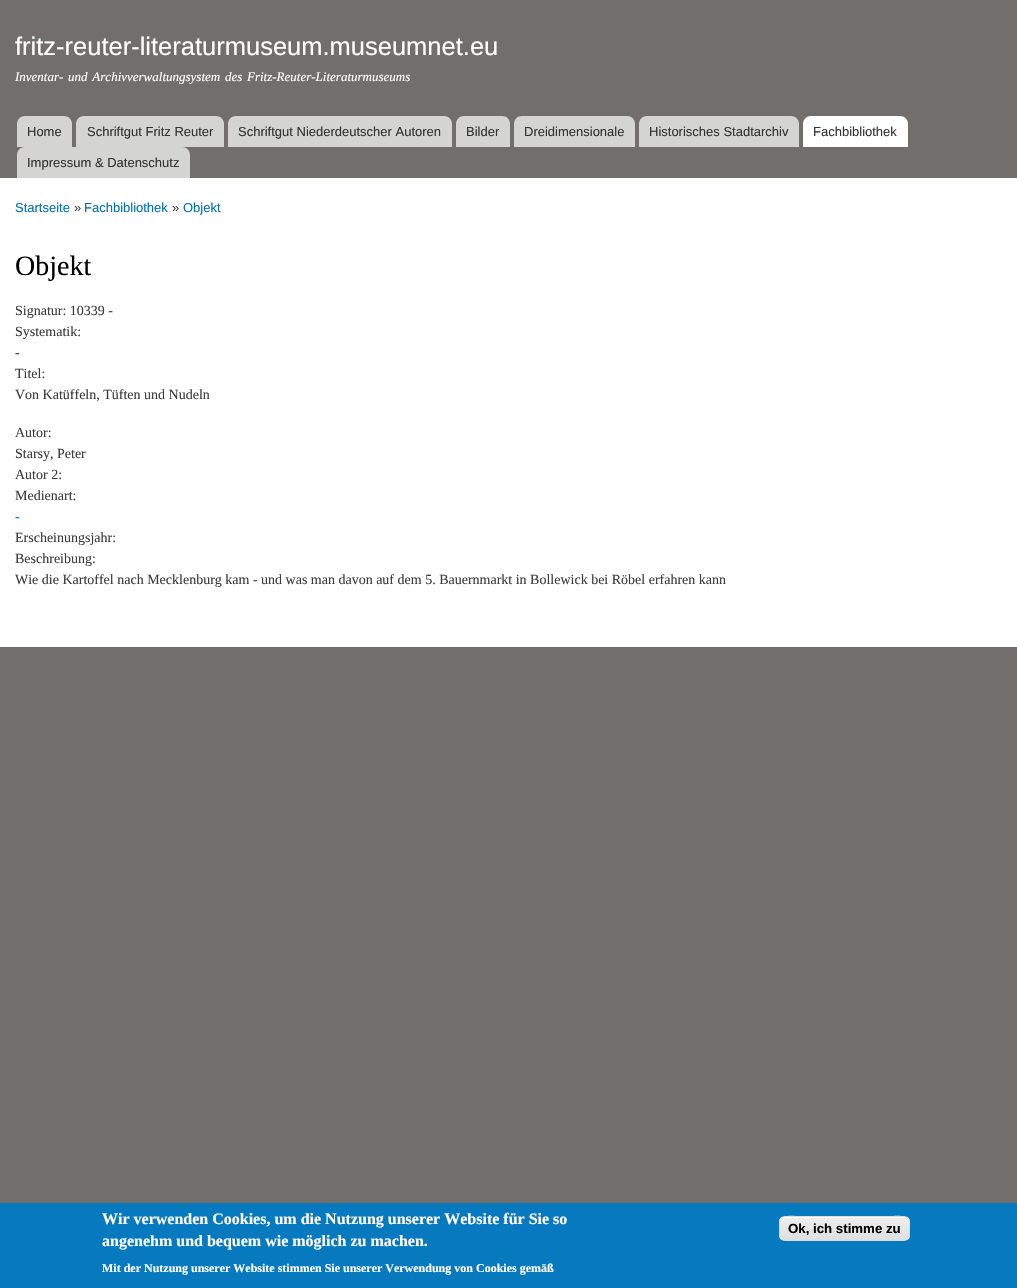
void draw(SkCanvas* c) {
SkPaint p;
p.setAntiAlias(true);
auto F=[&](const char* family, int weight, float size, bool italic = false){SkFontStyle style(weight, SkFontStyle::kNormal_Width,italic ? SkFontStyle::kItalic_Slant : SkFontStyle::kUpright_Slant);SkFont result(fontMgr->matchFamilyStyle(family, style), size);result.setSubpixel(true);return result;};
auto T=[&](const char* s, float x, float y, const SkFont& font){c->drawString(s, x, y, font, p);};
auto L=[&](const char* s, float x, float y, const SkFont& font, const SkPaint& ink, float letter, float word){std::vector<SkGlyphID> glyphs(font.countText(s, strlen(s), SkTextEncoding::kUTF8));std::vector<float> xs(glyphs.size());font.textToGlyphs(s, strlen(s), SkTextEncoding::kUTF8, glyphs);font.getXPos(glyphs, xs, x);float extra = 0;for (size_t i = 0; i < glyphs.size(); i++) {xs[i] += extra;extra += letter + word * (glyphs[i] == font.unicharToGlyph(' '));}c->drawTextBlob(SkTextBlob::MakeFromPosHGlyphs(glyphs, xs, y, font), 0, 0, ink);};
auto R=[&](float x, float y, float w, float h){c->drawRect(SkRect::MakeXYWH(x, y, w, h), p);};
auto P=[&](const char* data, bool evenOdd = false){SkPath result = *SkParsePath::FromSVGString(data);if (evenOdd) result.setFillType(SkPathFillType::kEvenOdd);return result;};
c->clear(0xff716e6c);
p.setColor(0xffffffff);
R(0,178,1017,469);
auto f1 = F("Liberation Sans",400,25.5);
p.setColor(0xfffffeff);
T("fritz-reuter-literaturmuseum.museumnet.eu",15,55,f1);
auto f2 = F("Liberation Serif",400,13,true);
L("Inventar- und Archivverwaltungsystem des Fritz-Reuter-Literaturmuseums",15,81,f2,p,0,1.5);
p.setColor(0xffd4d4d3);
c->drawPath(P("M25 116h39c4.5 0 8 3.5 8 8v23h-55v-23c0-4.5 3.5-8 8-8z"),p);
auto f3 = F("Liberation Sans",400,13);
p.setColor(0xff333333);
T("Home",27,136,f3);
p.setColor(0xffd4d4d3);
c->drawPath(P("M84 116h132c4.5 0 8 3.5 8 8v23h-148v-23c0-4.5 3.5-8 8-8z"),p);
p.setColor(0xff333333);
T("Schriftgut Fritz Reuter",87,136,f3);
p.setColor(0xffd4d4d3);
c->drawPath(P("M236 116h208c4.5 0 8 3.5 8 8v23h-224v-23c0-4.5 3.5-8 8-8z"),p);
p.setColor(0xff333333);
T("Schriftgut Niederdeutscher Autoren",238,136,f3);
p.setColor(0xffd4d4d3);
c->drawPath(P("M464 116h38c4.5 0 8 3.5 8 8v23h-54v-23c0-4.5 3.5-8 8-8z"),p);
p.setColor(0xff333333);
T("Bilder",466,136,f3);
p.setColor(0xffd4d4d3);
c->drawPath(P("M522 116h105c4.5 0 8 3.5 8 8v23h-121v-23c0-4.5 3.5-8 8-8z"),p);
p.setColor(0xff333333);
T("Dreidimensionale",524,136,f3);
p.setColor(0xffd4d4d3);
c->drawPath(P("M647 116h144c4.5 0 8 3.5 8 8v23h-160v-23c0-4.5 3.5-8 8-8z"),p);
p.setColor(0xff333333);
T("Historisches Stadtarchiv",649,136,f3);
p.setColor(0xffffffff);
c->drawPath(P("M811 116h89c4.5 0 8 3.5 8 8v23h-105v-23c0-4.5 3.5-8 8-8z"),p);
p.setColor(0xff333333);
T("Fachbibliothek",813,136,f3);
p.setColor(0xffd4d4d3);
c->drawPath(P("M25 147h157c4.5 0 8 3.5 8 8v23h-173v-23c0-4.5 3.5-8 8-8z"),p);
p.setColor(0xff333333);
T("Impressum & Datenschutz",27,167,f3);
p.setColor(0xff0070b3);
T("Startseite",15,212,f3);
p.setColor(0xff3b3b3b);
T("»",74,212,f3);
p.setColor(0xff0070b3);
T("Fachbibliothek",84,212,f3);
p.setColor(0xff3b3b3b);
T("»",172,212,f3);
p.setColor(0xff0070b3);
T("Objekt",183,212,f3);
auto f4 = F("Liberation Serif",400,28);
p.setColor(0xff000000);
T("Objekt",15,275,f4);
auto f5 = F("Liberation Serif",400,14);
p.setColor(0xff3b3b3b);
T("Signatur: 10339 -",15,315,f5);
T("Systematik:",15,336,f5);
T("-",15,357,f5);
T("Titel:",15,378,f5);
T("Von Katüffeln, Tüften und Nudeln",15,399,f5);
T("Autor:",15,437,f5);
T("Starsy, Peter",15,458,f5);
T("Autor 2:",15,479,f5);
T("Medienart:",15,500,f5);
p.setColor(0xff0070b3);
T("-",15,521,f5);
p.setColor(0xff3b3b3b);
T("Erscheinungsjahr:",15,542,f5);
T("Beschreibung:",15,563,f5);
T("Wie die Kartoffel nach Mecklenburg kam - und was man davon auf dem 5. Bauernmarkt in Bollewick bei Röbel erfahren kann",15,584,f5);
p.setColor(0xff0779bf);
R(0,1203,1017,85);
auto f6 = F("Liberation Serif",700,16);
p.setColor(0xfffffeff);
T("Wir verwenden Cookies, um die Nutzung unserer Website für Sie so",102,1224,f6);
T("angenehm und bequem wie möglich zu machen.",102,1246,f6);
auto f7 = F("Liberation Serif",700,12);
T("Mit der Nutzung unserer Website stimmen Sie unserer Verwendung von Cookies gemäß",102,1272,f7);
c->save();
c->clipPath(P("M785 1216h119c3.5 0 6 2.5 6 6v13c0 3.5-2.5 6-6 6h-119c-3.5 0-6-2.5-6-6v-13c0-3.5 2.5-6 6-6z"),true);
{
const SkColor colors[] = {0xffededed,0xffdfdfdf};
const float stops[] = {.05,1};
const SkPoint ends[] = {{845,1217}, {845,1240}};
p.setShader(SkGradientShader::MakeLinear(ends, colors, stops, 2, SkTileMode::kClamp));
p.setAlpha(255);
}
R(779,1217,131,23);
c->restore();
p.setShader(nullptr);
p.setColor(0xffffffff);
c->drawPath(P("M785 1218h119c3 0 5 2 5 5c0-11-21-6-25-6h-79c-4 0-25-5-25 6c0-3 2-5 5-5z"),p);
p.setStroke(true);
p.setStrokeWidth(1);
p.setColor(0xffdcdcdc);
c->drawRoundRect(SkRect::MakeXYWH(779.5,1216.5,130,24),5.5,5.5,p);
auto f8 = F("Liberation Sans",700,13.25);
p.setStroke(false);
p.setColor(0xff000000);
T("Ok, ich stimme zu",788,1233,f8);
}
